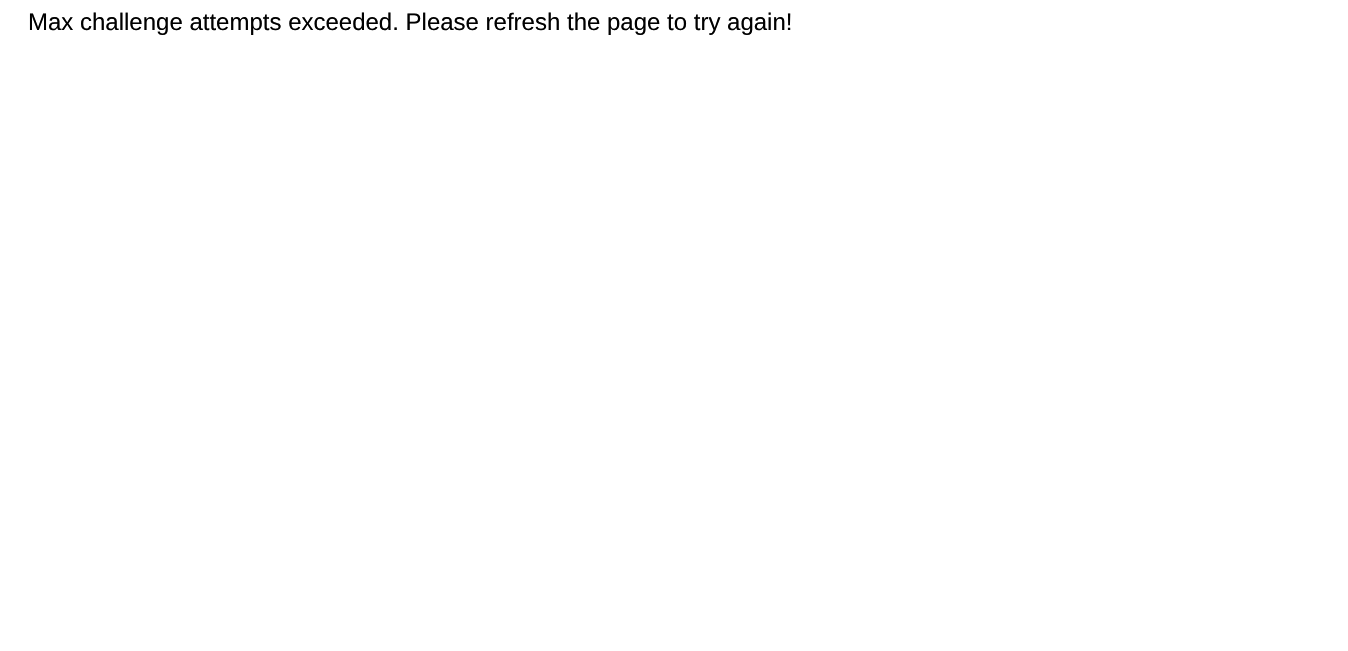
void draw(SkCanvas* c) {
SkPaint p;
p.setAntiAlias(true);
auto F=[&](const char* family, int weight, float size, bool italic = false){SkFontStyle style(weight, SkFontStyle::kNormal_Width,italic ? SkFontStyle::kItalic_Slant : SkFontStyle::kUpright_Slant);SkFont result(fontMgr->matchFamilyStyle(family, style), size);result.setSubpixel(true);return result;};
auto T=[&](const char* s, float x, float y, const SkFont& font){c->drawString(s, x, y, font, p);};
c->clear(0xffffffff);
auto f1 = F("Liberation Sans",400,24);
p.setColor(0xff000000);
T("Max challenge attempts exceeded. Please refresh the page to try again!",28,30,f1);
}
